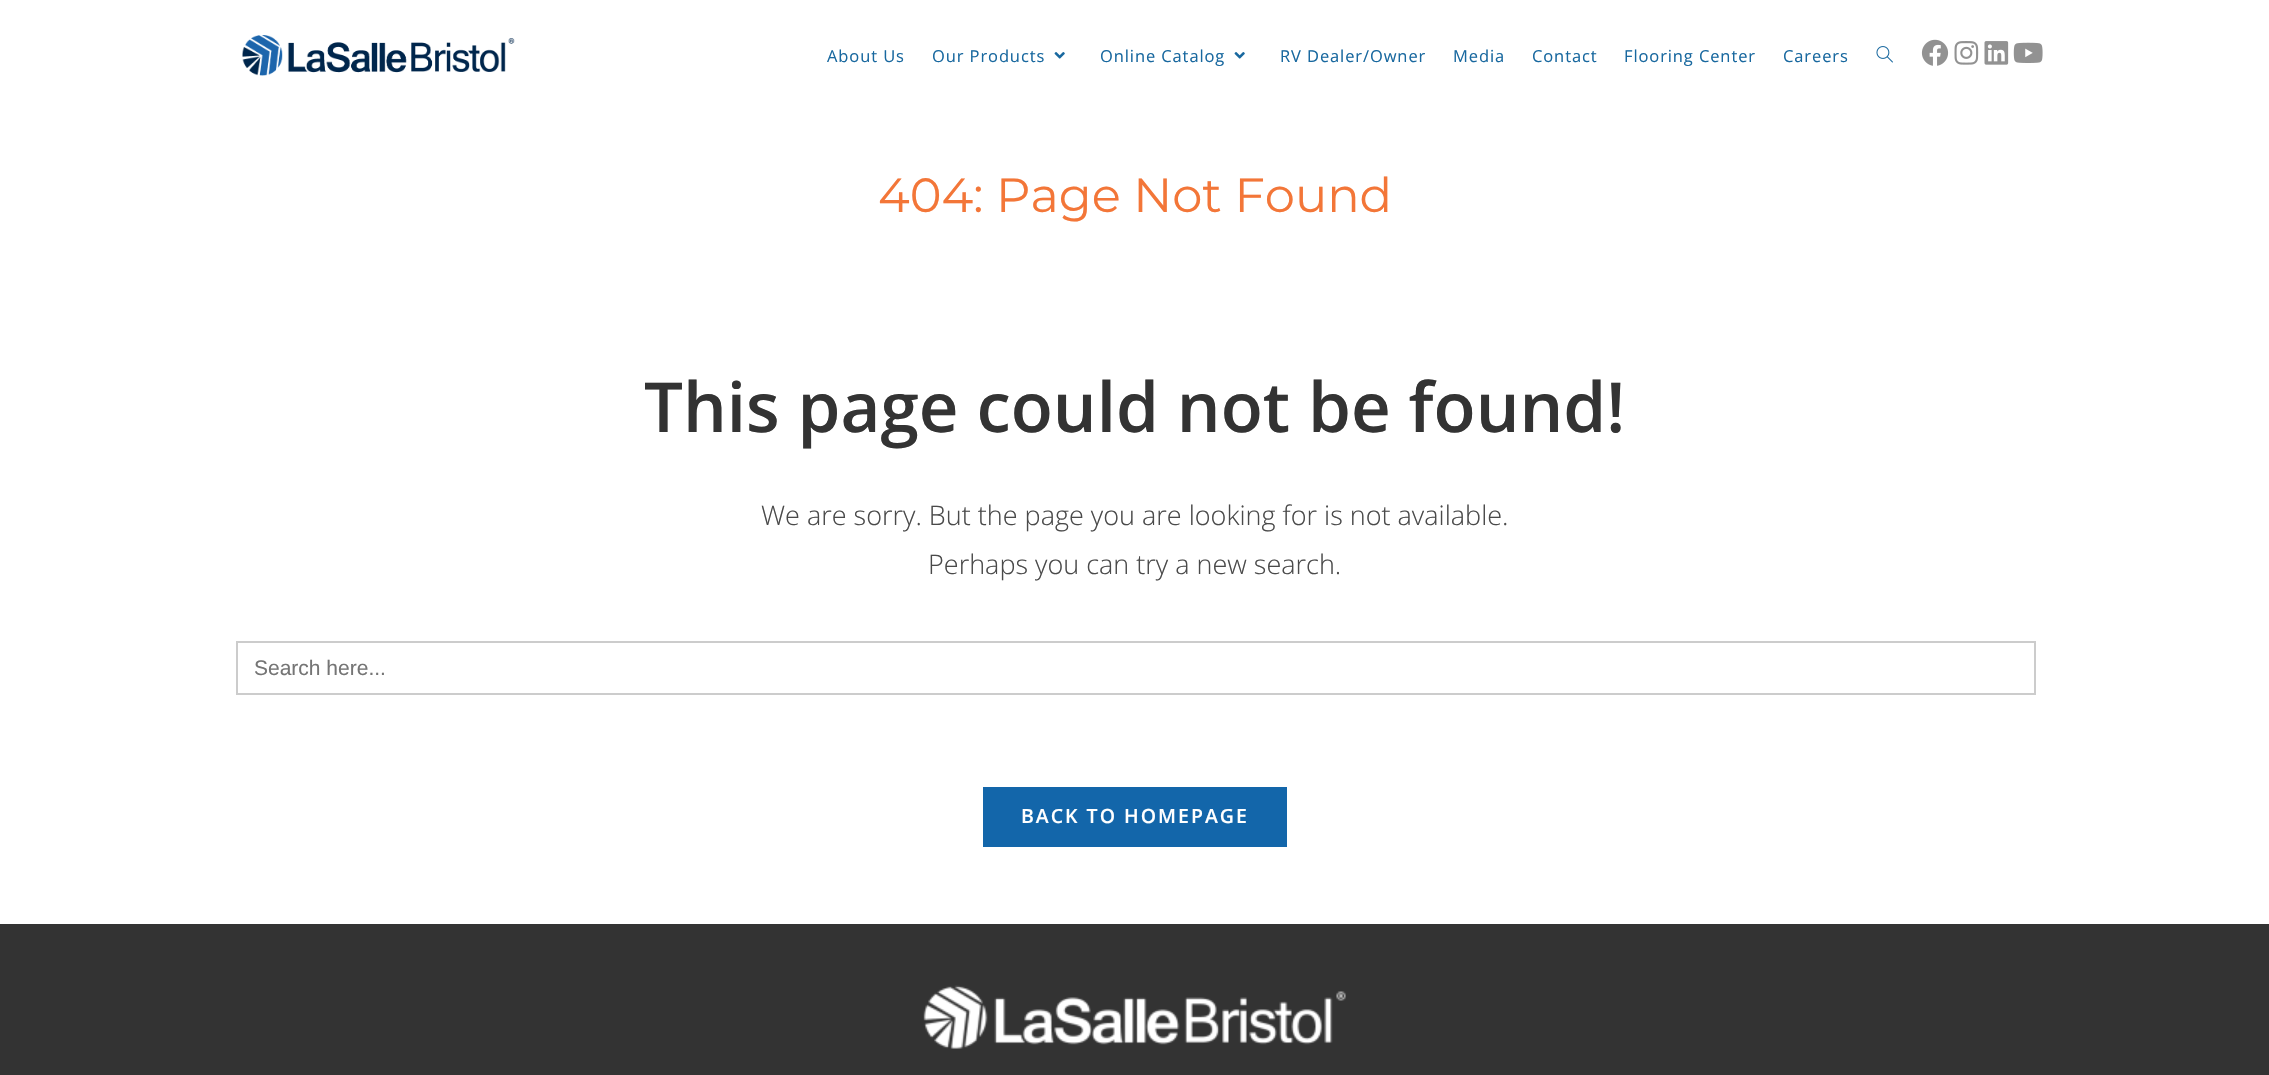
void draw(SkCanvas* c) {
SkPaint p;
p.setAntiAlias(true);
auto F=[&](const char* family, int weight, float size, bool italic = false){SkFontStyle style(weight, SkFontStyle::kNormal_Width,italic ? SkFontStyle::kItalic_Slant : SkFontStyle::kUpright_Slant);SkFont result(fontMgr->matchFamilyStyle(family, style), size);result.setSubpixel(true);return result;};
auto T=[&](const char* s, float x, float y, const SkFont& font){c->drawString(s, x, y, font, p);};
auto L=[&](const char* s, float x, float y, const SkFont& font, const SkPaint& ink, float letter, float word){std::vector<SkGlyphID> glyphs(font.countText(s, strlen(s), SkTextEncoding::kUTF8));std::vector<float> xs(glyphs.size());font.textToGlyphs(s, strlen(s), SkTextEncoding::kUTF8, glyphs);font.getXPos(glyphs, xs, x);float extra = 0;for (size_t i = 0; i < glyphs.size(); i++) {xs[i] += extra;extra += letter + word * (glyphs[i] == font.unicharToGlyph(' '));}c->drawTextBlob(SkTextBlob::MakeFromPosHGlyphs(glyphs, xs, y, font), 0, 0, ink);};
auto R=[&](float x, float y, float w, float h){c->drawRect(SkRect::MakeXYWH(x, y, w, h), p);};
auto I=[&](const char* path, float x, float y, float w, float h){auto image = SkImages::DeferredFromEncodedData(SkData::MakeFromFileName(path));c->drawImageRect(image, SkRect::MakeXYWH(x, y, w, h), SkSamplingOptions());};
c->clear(0xffffffff);
I("1.png",242,35,273,41);
auto f1 = F("Open Sans",400,16.5);
p.setColor(0xff18689f);
L("About Us",827,62,f1,p,.9,0);
L("Our Products",932,62,f1,p,.9,0);
I("2.png",1054,52,11,7);
L("Online Catalog",1100,62,f1,p,.9,0);
I("2.png",1234,52,11,7);
L("RV Dealer/Owner",1280,62,f1,p,.9,0);
L("Media",1453,62,f1,p,.9,0);
L("Contact",1532,62,f1,p,.9,0);
L("Flooring Center",1624,62,f1,p,.9,0);
L("Careers",1783,62,f1,p,.9,0);
I("3.png",1876,46,17,17);
I("4.png",1921,39,28,27);
I("5.png",1954,41,25,24);
I("6.png",1984,41,25,24);
I("7.png",2013,42,30,21);
auto f2 = F("Montserrat",400,48);
p.setColor(0xfff37638);
T("404: Page Not Found",878,212,f2);
auto f3 = F("Open Sans",600,69);
p.setColor(0xff333333);
T("This page could not be found!",644,432,f3);
auto f4 = F("Open Sans",300,27);
p.setColor(0xff4a4a4a);
T("We are sorry. But the page you are looking for is not available.",761,525,f4);
T("Perhaps you can try a new search.",928,574,f4);
p.setStroke(true);
p.setStrokeWidth(2);
p.setColor(0xffcccccc);
c->drawRect(SkRect::MakeXYWH(237,642,1798,52),p);
auto f5 = F("Liberation Sans",400,21);
p.setStroke(false);
p.setColor(0xff757575);
T("Search here...",254,675,f5);
p.setColor(0xff1366aa);
R(983,787,304,60);
auto f6 = F("Open Sans",600,19.5);
p.setColor(0xffffffff);
L("BACK TO HOMEPAGE",1021,823,f6,p,2,0);
p.setColor(0xff333333);
R(0,924,2269,151);
I("8.png",923,985,423,64);
}
